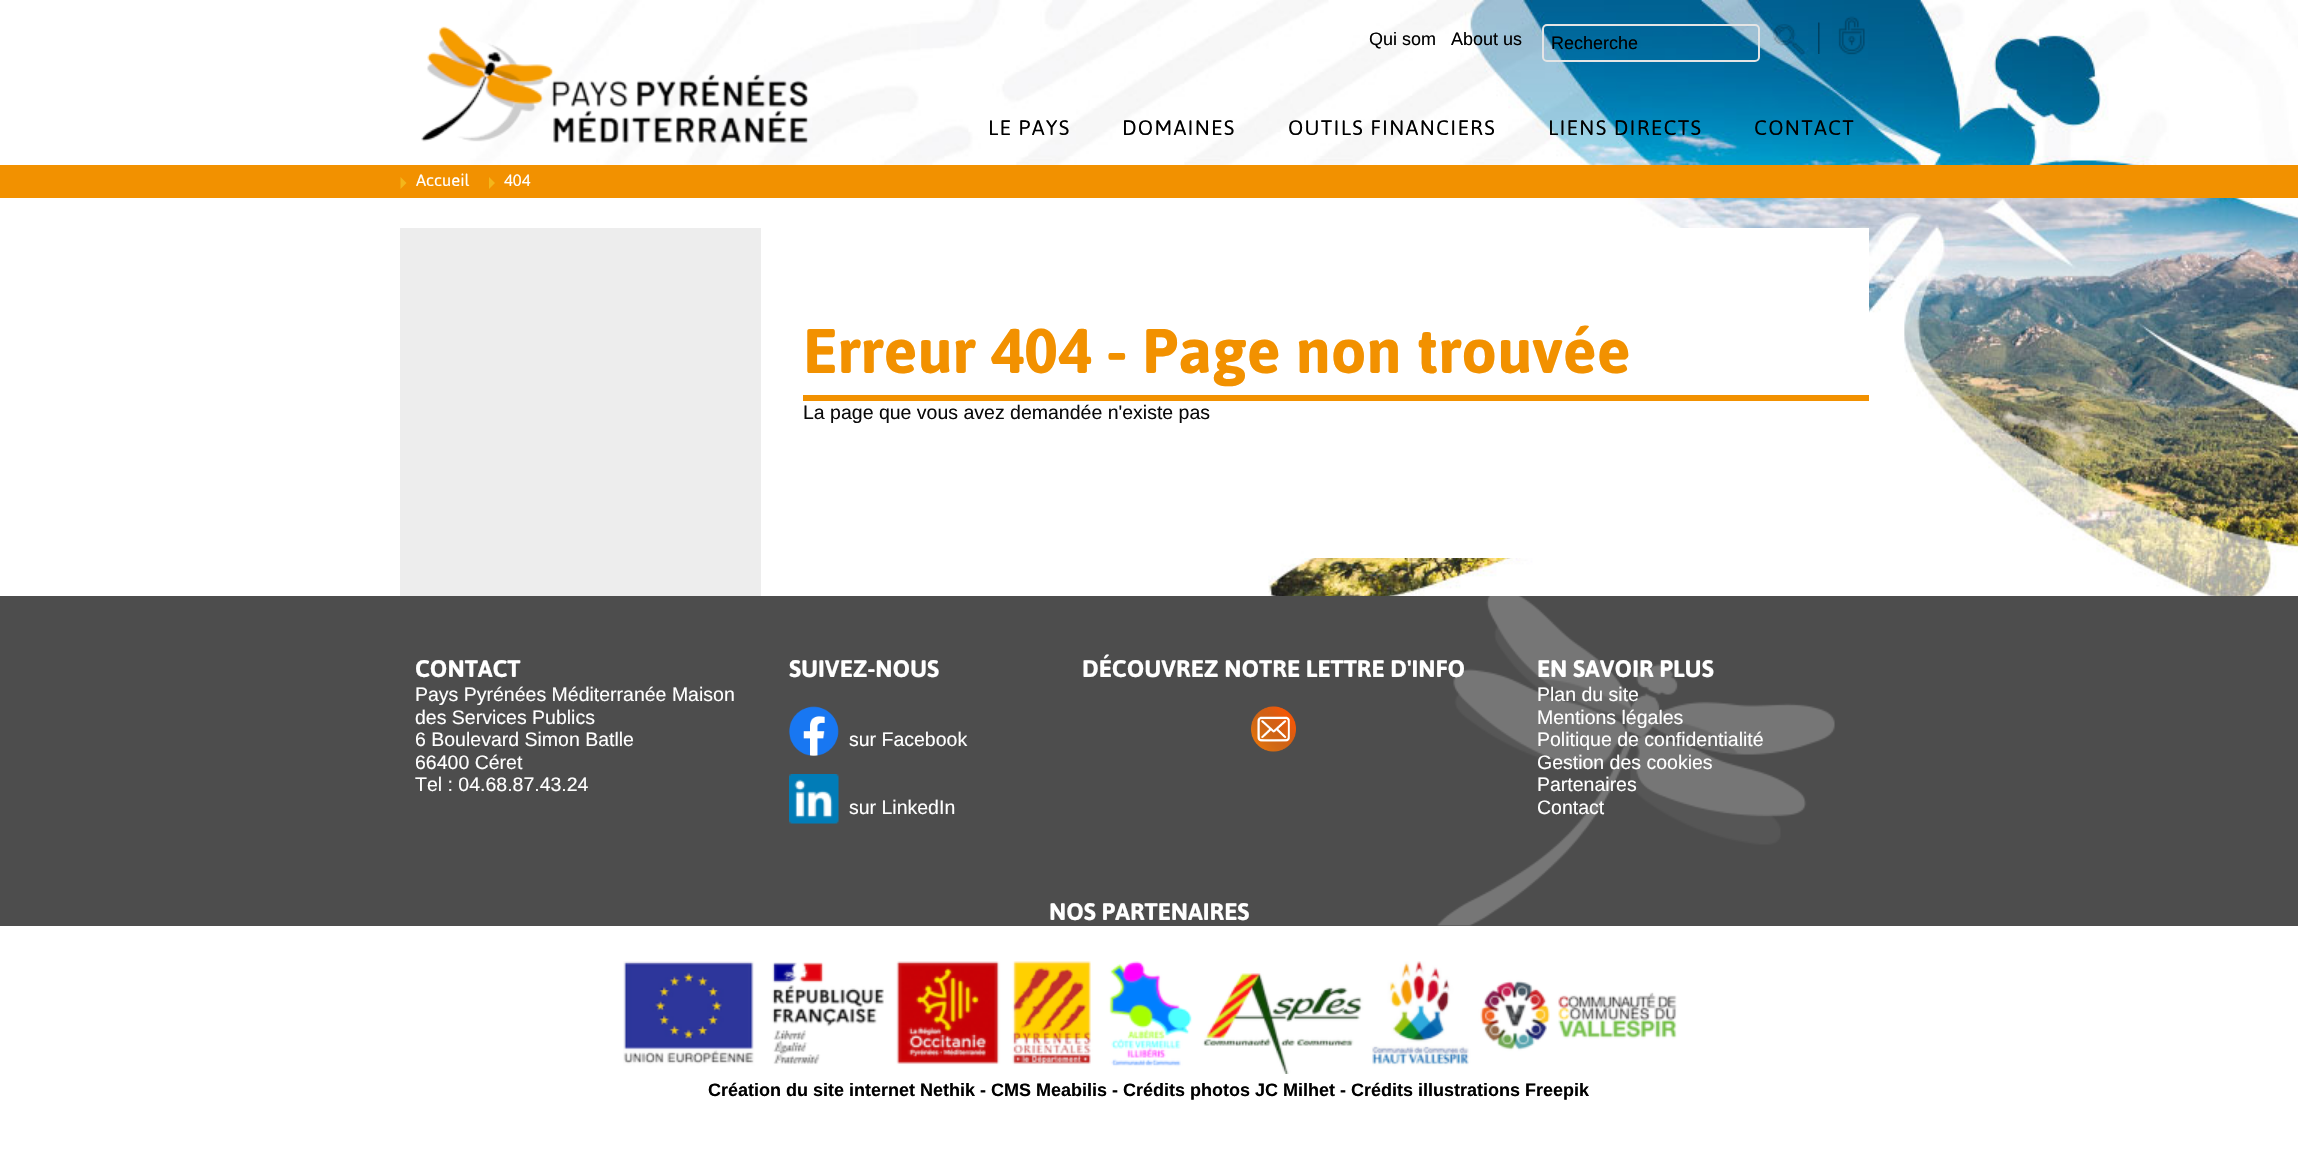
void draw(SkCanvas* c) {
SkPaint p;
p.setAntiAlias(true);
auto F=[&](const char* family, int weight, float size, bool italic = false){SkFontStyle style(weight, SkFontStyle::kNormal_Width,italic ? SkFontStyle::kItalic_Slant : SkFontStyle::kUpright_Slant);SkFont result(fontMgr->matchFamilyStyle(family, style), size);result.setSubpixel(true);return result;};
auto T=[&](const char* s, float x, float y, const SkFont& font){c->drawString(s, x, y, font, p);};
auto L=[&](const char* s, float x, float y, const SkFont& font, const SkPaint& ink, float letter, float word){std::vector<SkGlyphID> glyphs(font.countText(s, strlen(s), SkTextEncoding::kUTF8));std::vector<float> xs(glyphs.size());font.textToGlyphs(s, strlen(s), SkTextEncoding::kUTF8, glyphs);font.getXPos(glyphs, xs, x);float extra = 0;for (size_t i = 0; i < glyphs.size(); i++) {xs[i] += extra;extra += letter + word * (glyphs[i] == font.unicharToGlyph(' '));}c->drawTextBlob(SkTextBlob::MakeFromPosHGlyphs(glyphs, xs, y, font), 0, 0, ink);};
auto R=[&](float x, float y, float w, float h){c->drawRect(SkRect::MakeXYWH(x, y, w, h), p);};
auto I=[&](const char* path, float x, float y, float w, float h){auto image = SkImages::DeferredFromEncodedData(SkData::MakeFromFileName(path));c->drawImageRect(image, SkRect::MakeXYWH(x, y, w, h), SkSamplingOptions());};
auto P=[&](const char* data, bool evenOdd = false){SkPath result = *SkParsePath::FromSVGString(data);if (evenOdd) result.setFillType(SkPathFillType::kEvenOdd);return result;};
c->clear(0xffffffff);
I("1.png",440,0,1858,596);
I("2.png",421,26,388,117);
auto f1 = F("Liberation Sans",400,18);
p.setColor(0xff000000);
T("Qui som",1369,45,f1);
T("About us",1451,45,f1);
p.setStroke(true);
p.setStrokeWidth(2);
p.setColor(0xffe5e5e5);
c->drawRoundRect(SkRect::MakeXYWH(1543,25,216,36),4,4,p);
p.setStroke(false);
p.setColor(0xff000000);
T("Recherche",1551,49,f1);
I("3.png",1773,24,32,31);
I("4.png",1818,22,2,32);
I("5.png",1838,16,27,39);
auto f2 = F("Asap",400,21);
L("LE PAYS",988,135,f2,p,1.25,0);
L("DOMAINES",1122,135,f2,p,1.25,0);
L("OUTILS FINANCIERS",1288,135,f2,p,1.25,0);
L("LIENS DIRECTS",1548,135,f2,p,1.25,0);
L("CONTACT",1754,135,f2,p,1.25,0);
p.setColor(0xfff29100);
R(0,165,2298,33);
p.setColor(0xfff3b61b);
c->drawPath(P("M400.5 189v-12l6 6z"),p);
auto f3 = F("Asap",400,16.5);
p.setColor(0xffffffff);
T("Accueil",416,186,f3);
p.setColor(0xfff3b61b);
c->drawPath(P("M489 189v-12l6 6z"),p);
p.setColor(0xffffffff);
T("404",504,186,f3);
p.setColor(0xffededed);
R(400,228,361,368);
p.setColor(0xffffffff);
R(1304,228,565,330);
p.setColor(0xfff29100);
R(803,395,1066,6);
auto f4 = F("Asap",700,63);
T("Erreur 404 - Page non trouvée",803,373,f4);
auto f5 = F("Liberation Sans",400,19.5);
p.setColor(0xff0a0a0a);
T("La page que vous avez demandée n'existe pas",803,419,f5);
p.setColor(0xff4d4d4d);
R(0,596,2298,330);
I("6.png",1437,596,398,330);
auto f6 = F("Asap",700,24);
p.setColor(0xffffffff);
T("CONTACT",415,677,f6);
T("Pays Pyrénées Méditerranée Maison",415,701,f5);
T("des Services Publics",415,724,f5);
T("6 Boulevard Simon Batlle",415,746,f5);
T("66400 Céret",415,769,f5);
T("Tel : 04.68.87.43.24",415,791,f5);
T("SUIVEZ-NOUS",789,677,f6);
I("7.png",789,706,50,50);
T("sur Facebook",849,746,f5);
I("8.png",789,774,50,50);
T("sur LinkedIn",849,814,f5);
T("DÉCOUVREZ NOTRE LETTRE D'INFO",1082,677,f6);
I("9.png",1251,706,45,46);
T("EN SAVOIR PLUS",1537,677,f6);
T("Plan du site",1537,701,f5);
T("Mentions légales",1537,724,f5);
T("Politique de confidentialité",1537,746,f5);
T("Gestion des cookies",1537,769,f5);
T("Partenaires",1537,791,f5);
T("Contact",1537,814,f5);
T("NOS PARTENAIRES",1049,920,f6);
I("10.png",623,961,1054,113);
auto f7 = F("Liberation Sans",700,18);
p.setColor(0xff000000);
T("Création du site internet Nethik - CMS Meabilis - Crédits photos JC Milhet - Crédits illustrations Freepik",708,1096,f7);
}
